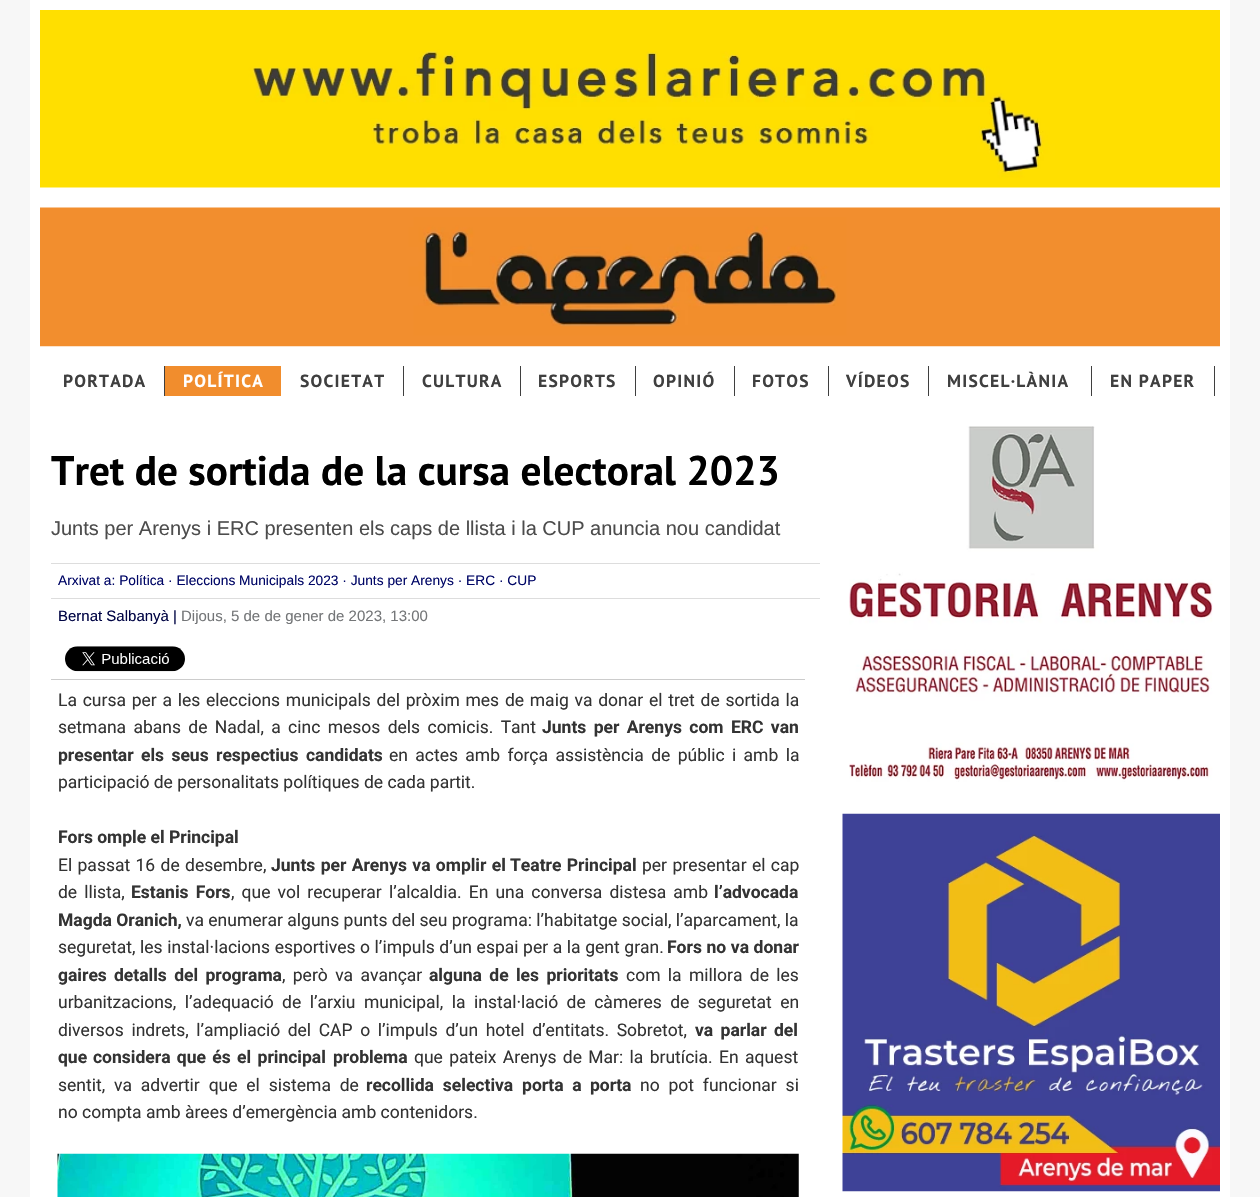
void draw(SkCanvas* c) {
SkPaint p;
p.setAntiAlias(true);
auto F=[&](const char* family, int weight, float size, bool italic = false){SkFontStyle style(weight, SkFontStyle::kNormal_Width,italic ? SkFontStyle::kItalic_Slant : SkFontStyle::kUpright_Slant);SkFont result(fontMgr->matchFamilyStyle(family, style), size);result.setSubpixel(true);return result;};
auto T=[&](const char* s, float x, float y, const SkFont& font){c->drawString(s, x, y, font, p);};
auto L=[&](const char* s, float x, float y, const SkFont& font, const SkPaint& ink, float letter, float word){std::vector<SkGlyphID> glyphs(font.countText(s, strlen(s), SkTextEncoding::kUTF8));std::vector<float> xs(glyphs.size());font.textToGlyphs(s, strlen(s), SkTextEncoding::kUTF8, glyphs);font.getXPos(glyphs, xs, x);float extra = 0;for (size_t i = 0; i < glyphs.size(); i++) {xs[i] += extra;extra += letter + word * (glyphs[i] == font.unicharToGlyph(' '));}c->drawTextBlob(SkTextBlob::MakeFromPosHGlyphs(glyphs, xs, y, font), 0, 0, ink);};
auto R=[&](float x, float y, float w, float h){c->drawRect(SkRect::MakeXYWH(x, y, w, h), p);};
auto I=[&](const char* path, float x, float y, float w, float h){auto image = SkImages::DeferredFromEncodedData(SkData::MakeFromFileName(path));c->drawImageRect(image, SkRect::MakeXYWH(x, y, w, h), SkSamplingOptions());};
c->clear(0xfff7f7f7);
p.setColor(0xffffffff);
R(30,0,1200,1197);
I("1.png",40,10,1180,178);
I("2.png",40,207,1180,140);
p.setColor(0xff3f3f3f);
R(164,366,1,30);
auto f1 = F("PT Sans",700,17.5);
L("PORTADA",63,387,f1,p,1.25,0);
p.setColor(0xfff18d2d);
R(165,366,116,30);
p.setColor(0xffffffff);
L("POLÍTICA",183,387,f1,p,1.25,0);
p.setColor(0xff3f3f3f);
R(403,366,1,30);
L("SOCIETAT",300,387,f1,p,1.25,0);
R(520,366,1,30);
L("CULTURA",422,387,f1,p,1.25,0);
R(635,366,1,30);
L("ESPORTS",538,387,f1,p,1.25,0);
R(734,366,1,30);
L("OPINIÓ",653,387,f1,p,1.25,0);
R(828,366,1,30);
L("FOTOS",752,387,f1,p,1.25,0);
R(928,366,1,30);
L("VÍDEOS",846,387,f1,p,1.25,0);
R(1091,366,1,30);
L("MISCEL·LÀNIA",947,387,f1,p,1.25,0);
R(1214,366,1,30);
L("EN PAPER",1110,387,f1,p,1.25,0);
auto f2 = F("PT Sans",700,41.25);
p.setColor(0xff000000);
T("Tret de sortida de la cursa electoral 2023",51,485,f2);
auto f3 = F("Liberation Sans",400,20);
p.setColor(0xff4c4c4c);
T("Junts per Arenys i ERC presenten els caps de llista i la CUP anuncia nou candidat",51,535,f3);
p.setColor(0xffdddddd);
R(51,563,769,1);
R(51,598,769,1);
auto f4 = F("Liberation Sans",400,13.75);
p.setColor(0xff000666);
T("Arxivat a: Política · Eleccions Municipals 2023 · Junts per Arenys · ERC · CUP",58,585,f4);
auto f5 = F("Liberation Sans",400,15);
p.setColor(0xff000444);
T("Bernat Salbanyà |",58,621,f5);
p.setColor(0xff747678);
T("Dijous, 5 de de gener de 2023, 13:00",181,621,f5);
I("3.png",65,646,120,26);
p.setColor(0xffcccccc);
R(51,679,754,1);
auto f6 = F("Roboto",400,17.5);
p.setColor(0xff333333);
L("La cursa per a les eleccions municipals del pròxim mes de maig va donar el tret de sortida la",58,706,f6,p,0,1.4);
L("setmana abans de Nadal, a cinc mesos dels comicis. Tant",58,733,f6,p,0,3);
auto f7 = F("Roboto",700,17.5);
L("Junts per Arenys com",542,733,f7,p,0,3);
L("ERC van",731,733,f7,p,0,3);
L("presentar els seus respectius candidats",58,761,f7,p,0,3);
L("en actes amb força assistència de públic i amb la",389,761,f6,p,0,3);
T("participació de personalitats polítiques de cada partit.",58,788,f6);
T("Fors omple el Principal",58,843,f7);
L("El passat 16 de desembre,",58,871,f6,p,0,1);
L("Junts per Arenys va omplir el",271,871,f7,p,0,1);
L("Teatre Principal",510,871,f7,p,0,1);
L("per presentar el cap",642,871,f6,p,0,1);
L("de llista,",58,898,f6,p,0,2.75);
L("Estanis Fors",131,898,f7,p,0,2.75);
L(", que vol recuperar l’alcaldia. En una conversa distesa amb",231,898,f6,p,0,2.75);
T("l’advocada",714,898,f7);
T("Magda Oranich,",58,926,f7);
T("va enumerar alguns punts del seu programa: l’habitatge social, l’aparcament, la",186,926,f6);
L("seguretat, les instal·lacions esportives o l’impuls d’un espai per a la gent gran.",58,953,f6,p,0,.25);
L("Fors no va donar",667,953,f7,p,0,.25);
T("gaires",58,981,f7);
L("detalls del programa",114,981,f7,p,0,3);
L(", però va avançar",282,981,f6,p,0,3);
L("alguna de les prioritats",429,981,f7,p,0,3);
L("com la millora de les",626,981,f6,p,0,3);
L("urbanitzacions, l’adequació de l’arxiu municipal, la instal·lació de càmeres de seguretat en",58,1008,f6,p,0,4.1);
L("diversos indrets, l’ampliació del CAP o l’impuls d’un hotel d’entitats. Sobretot,",58,1036,f6,p,0,3.25);
L("va parlar del",695,1036,f7,p,0,3);
T("que",58,1063,f7);
L("considera que és el principal",93,1063,f7,p,0,2);
T("problema",333,1063,f7);
L("que pateix Arenys de Mar: la brutícia. En aquest",414,1063,f6,p,0,2);
L("sentit, va advertir que el sistema de",58,1091,f6,p,0,4.5);
L("recollida selectiva porta a",366,1091,f7,p,0,4.5);
T("porta",590,1091,f7);
L("no pot funcionar si",640,1091,f6,p,0,4.5);
T("no compta amb àrees d’emergència amb contenidors.",58,1118,f6);
I("4.png",57,1153,742,44);
I("5.png",849,426,364,356);
I("6.png",842,813,378,379);
}
